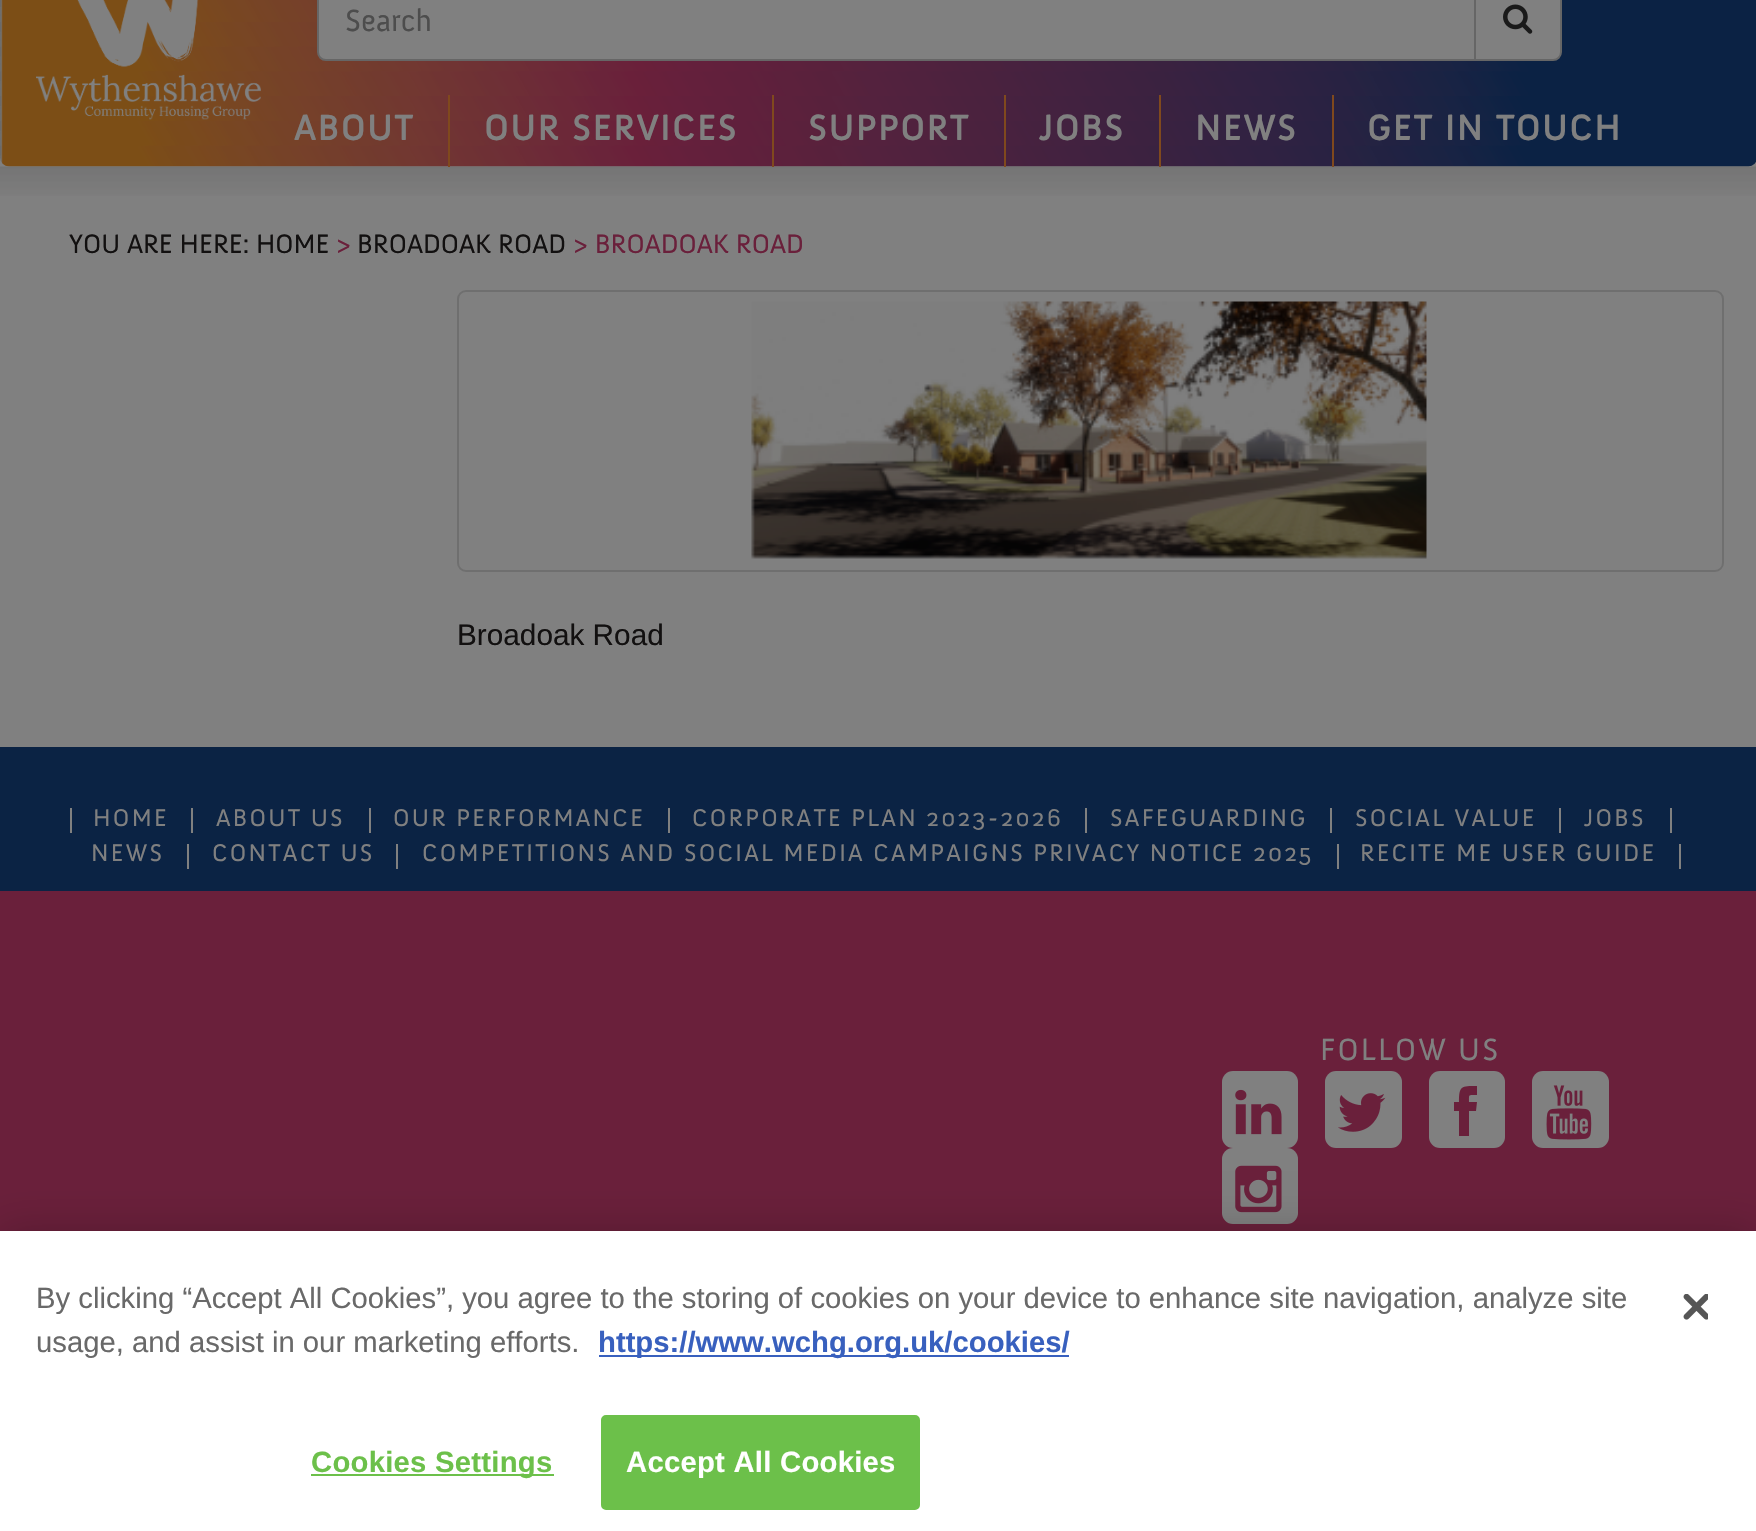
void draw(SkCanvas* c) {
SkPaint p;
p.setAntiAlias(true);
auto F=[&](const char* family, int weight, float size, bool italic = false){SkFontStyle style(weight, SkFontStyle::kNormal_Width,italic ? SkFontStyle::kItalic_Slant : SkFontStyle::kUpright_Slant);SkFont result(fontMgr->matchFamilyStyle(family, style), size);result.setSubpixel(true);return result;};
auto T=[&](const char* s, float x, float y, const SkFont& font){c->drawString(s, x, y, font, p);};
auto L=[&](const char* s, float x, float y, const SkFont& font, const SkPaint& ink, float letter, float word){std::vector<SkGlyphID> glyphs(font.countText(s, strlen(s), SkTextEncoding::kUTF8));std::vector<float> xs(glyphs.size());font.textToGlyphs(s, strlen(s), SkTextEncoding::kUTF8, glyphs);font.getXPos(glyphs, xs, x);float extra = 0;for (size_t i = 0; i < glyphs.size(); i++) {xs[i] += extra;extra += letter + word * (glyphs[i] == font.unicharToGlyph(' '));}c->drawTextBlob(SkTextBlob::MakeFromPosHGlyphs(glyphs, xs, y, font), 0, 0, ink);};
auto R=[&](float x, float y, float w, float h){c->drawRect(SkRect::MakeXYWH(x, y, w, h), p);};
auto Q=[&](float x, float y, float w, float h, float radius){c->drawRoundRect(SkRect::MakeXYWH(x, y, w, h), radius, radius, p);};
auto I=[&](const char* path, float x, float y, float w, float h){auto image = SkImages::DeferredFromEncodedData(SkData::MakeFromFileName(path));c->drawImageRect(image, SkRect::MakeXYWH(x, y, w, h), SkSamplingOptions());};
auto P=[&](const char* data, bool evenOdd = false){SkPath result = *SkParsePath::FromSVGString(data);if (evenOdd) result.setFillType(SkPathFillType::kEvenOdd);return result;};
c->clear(0xff808080);
I("4.png",0,166,1756,30);
I("1.png",0,0,1756,167);
I("2.png",36,0,225,120);
p.setColor(0xff808080);
c->drawPath(P("M326-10h1149v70h-1149c-4.5 0-8-3.5-8-8v-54c0-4.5 3.5-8 8-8z"),p);
p.setStroke(true);
p.setStrokeWidth(2);
p.setColor(0xff666666);
c->drawPath(P("M326-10h1149v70h-1149c-4.5 0-8-3.5-8-8v-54c0-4.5 3.5-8 8-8z"),p);
auto f1 = F("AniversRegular",400,31.5);
p.setStroke(false);
p.setColor(0xff4d4d4d);
T("Search",345,31,f1);
p.setColor(0xff808080);
c->drawPath(P("M1475-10h78c4.5 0 8 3.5 8 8v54c0 4.5-3.5 8-8 8h-78z"),p);
p.setStroke(true);
p.setColor(0xff666666);
c->drawPath(P("M1475-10h78c4.5 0 8 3.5 8 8v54c0 4.5-3.5 8-8 8h-78z"),p);
I("3.png",1503,4,30,30);
auto f2 = F("AniversRegular",700,36);
p.setStroke(false);
p.setColor(0xff808080);
L("ABOUT",294,140,f2,p,2.25,0);
p.setColor(0xff80491d);
R(448,95,2,72);
p.setColor(0xff808080);
L("OUR SERVICES",484,140,f2,p,2.25,0);
p.setColor(0xff80491d);
R(772,95,2,72);
p.setColor(0xff808080);
L("SUPPORT",808,140,f2,p,2.25,0);
p.setColor(0xff80491d);
R(1004,95,2,72);
p.setColor(0xff808080);
L("JOBS",1039,140,f2,p,2.25,0);
p.setColor(0xff80491d);
R(1159,95,2,72);
p.setColor(0xff808080);
L("NEWS",1195,140,f2,p,2.25,0);
p.setColor(0xff80491d);
R(1332,95,2,72);
p.setColor(0xff808080);
L("GET IN TOUCH",1367,140,f2,p,2.25,0);
auto f3 = F("AniversRegular",400,27.25);
p.setColor(0xff121010);
T("YOU ARE HERE: HOME",69,253,f3);
p.setColor(0xff6a203b);
T(">",336,253,f3);
p.setColor(0xff121010);
T("BROADOAK ROAD",357,253,f3);
p.setColor(0xff6a203b);
T("> BROADOAK ROAD",573,253,f3);
p.setStroke(true);
p.setColor(0xff6f6f6f);
c->drawRoundRect(SkRect::MakeXYWH(458,291,1265,280),8,8,p);
I("5.png",751,301,676,258);
auto f4 = F("Liberation Sans",400,29.75);
p.setStroke(false);
p.setColor(0xff121010);
T("Broadoak Road",457,645,f4);
p.setColor(0xff0b2344);
R(0,747,1756,144);
auto f5 = F("AniversRegular",400,24.75);
p.setColor(0xff808080);
L("HOME",93,826,f5,p,2.25,0);
R(191,808,2,25);
R(70,808,2,25);
L("ABOUT US",216,826,f5,p,2.25,0);
R(369,808,2,25);
L("OUR PERFORMANCE",393,826,f5,p,2.25,0);
R(668,808,2,25);
L("CORPORATE PLAN 2023-2026",692,826,f5,p,2.25,0);
R(1085,808,2,25);
L("SAFEGUARDING",1110,826,f5,p,2.25,0);
R(1330,808,2,25);
L("SOCIAL VALUE",1355,826,f5,p,2.25,0);
R(1559,808,2,25);
L("JOBS",1584,826,f5,p,2.25,0);
R(1670,808,2,25);
L("NEWS",91,861,f5,p,2.25,0);
R(187,844,2,25);
L("CONTACT US",212,861,f5,p,2.25,0);
R(396,844,2,25);
L("COMPETITIONS AND SOCIAL MEDIA CAMPAIGNS PRIVACY NOTICE 2025",422,861,f5,p,2.25,0);
R(1337,844,2,25);
L("RECITE ME USER GUIDE",1360,861,f5,p,2.25,0);
R(1679,844,2,25);
p.setColor(0xff6a203b);
R(0,891,1756,340);
p.setColor(0xff808080);
L("FOLLOW US",1320,1060,f1,p,2.25,0);
Q(1222,1071,76,77,11);
I("6.png",1235,1089,47,46);
Q(1325,1071,77,77,11);
I("7.png",1338,1093,48,39);
Q(1429,1071,76,77,11);
p.setColor(0xff6a203b);
c->drawPath(P("M1469 1102h8l-1 9h-7v25h-10v-25h-5v-9h5c0-16 2-16 18-16v9c-9 0-8-1-8 7z"),p);
p.setColor(0xff808080);
Q(1532,1071,77,77,11);
I("8.png",1546,1085,46,55);
Q(1222,1148,76,76,11);
I("9.png",1235,1165,47,48);
p.setColor(0x33000000);
p.setMaskFilter(SkMaskFilter::MakeBlur(kNormal_SkBlurStyle, 20));
c->drawRect(SkRect::MakeXYWH(0,1231,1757,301),p);
p.setMaskFilter(nullptr);
p.setColor(0xffffffff);
R(0,1231,1756,300);
auto f6 = F("Liberation Sans",400,29.27);
p.setColor(0xff696969);
T("By clicking “Accept All Cookies”, you agree to the storing of cookies on your device to enhance site navigation, analyze site",36,1308,f6);
T("usage, and assist in our marketing efforts.",36,1352,f6);
p.setColor(0xff3860be);
R(599,1355,470,2);
auto f7 = F("Liberation Sans",700,29.27);
T("https://www.wchg.org.uk/cookies/",598,1352,f7);
I("10.png",1683,1294,25,26);
p.setColor(0xff6cc04a);
R(311,1474,243,2);
L("Cookies Settings",311,1472,f7,p,.25,0);
c->drawRoundRect(SkRect::MakeXYWH(602,1416,317,93),4,4,p);
p.setStroke(true);
c->drawRoundRect(SkRect::MakeXYWH(602,1416,317,93),4,4,p);
p.setStroke(false);
p.setColor(0xffffffff);
L("Accept All Cookies",626,1472,f7,p,.25,0);
}
